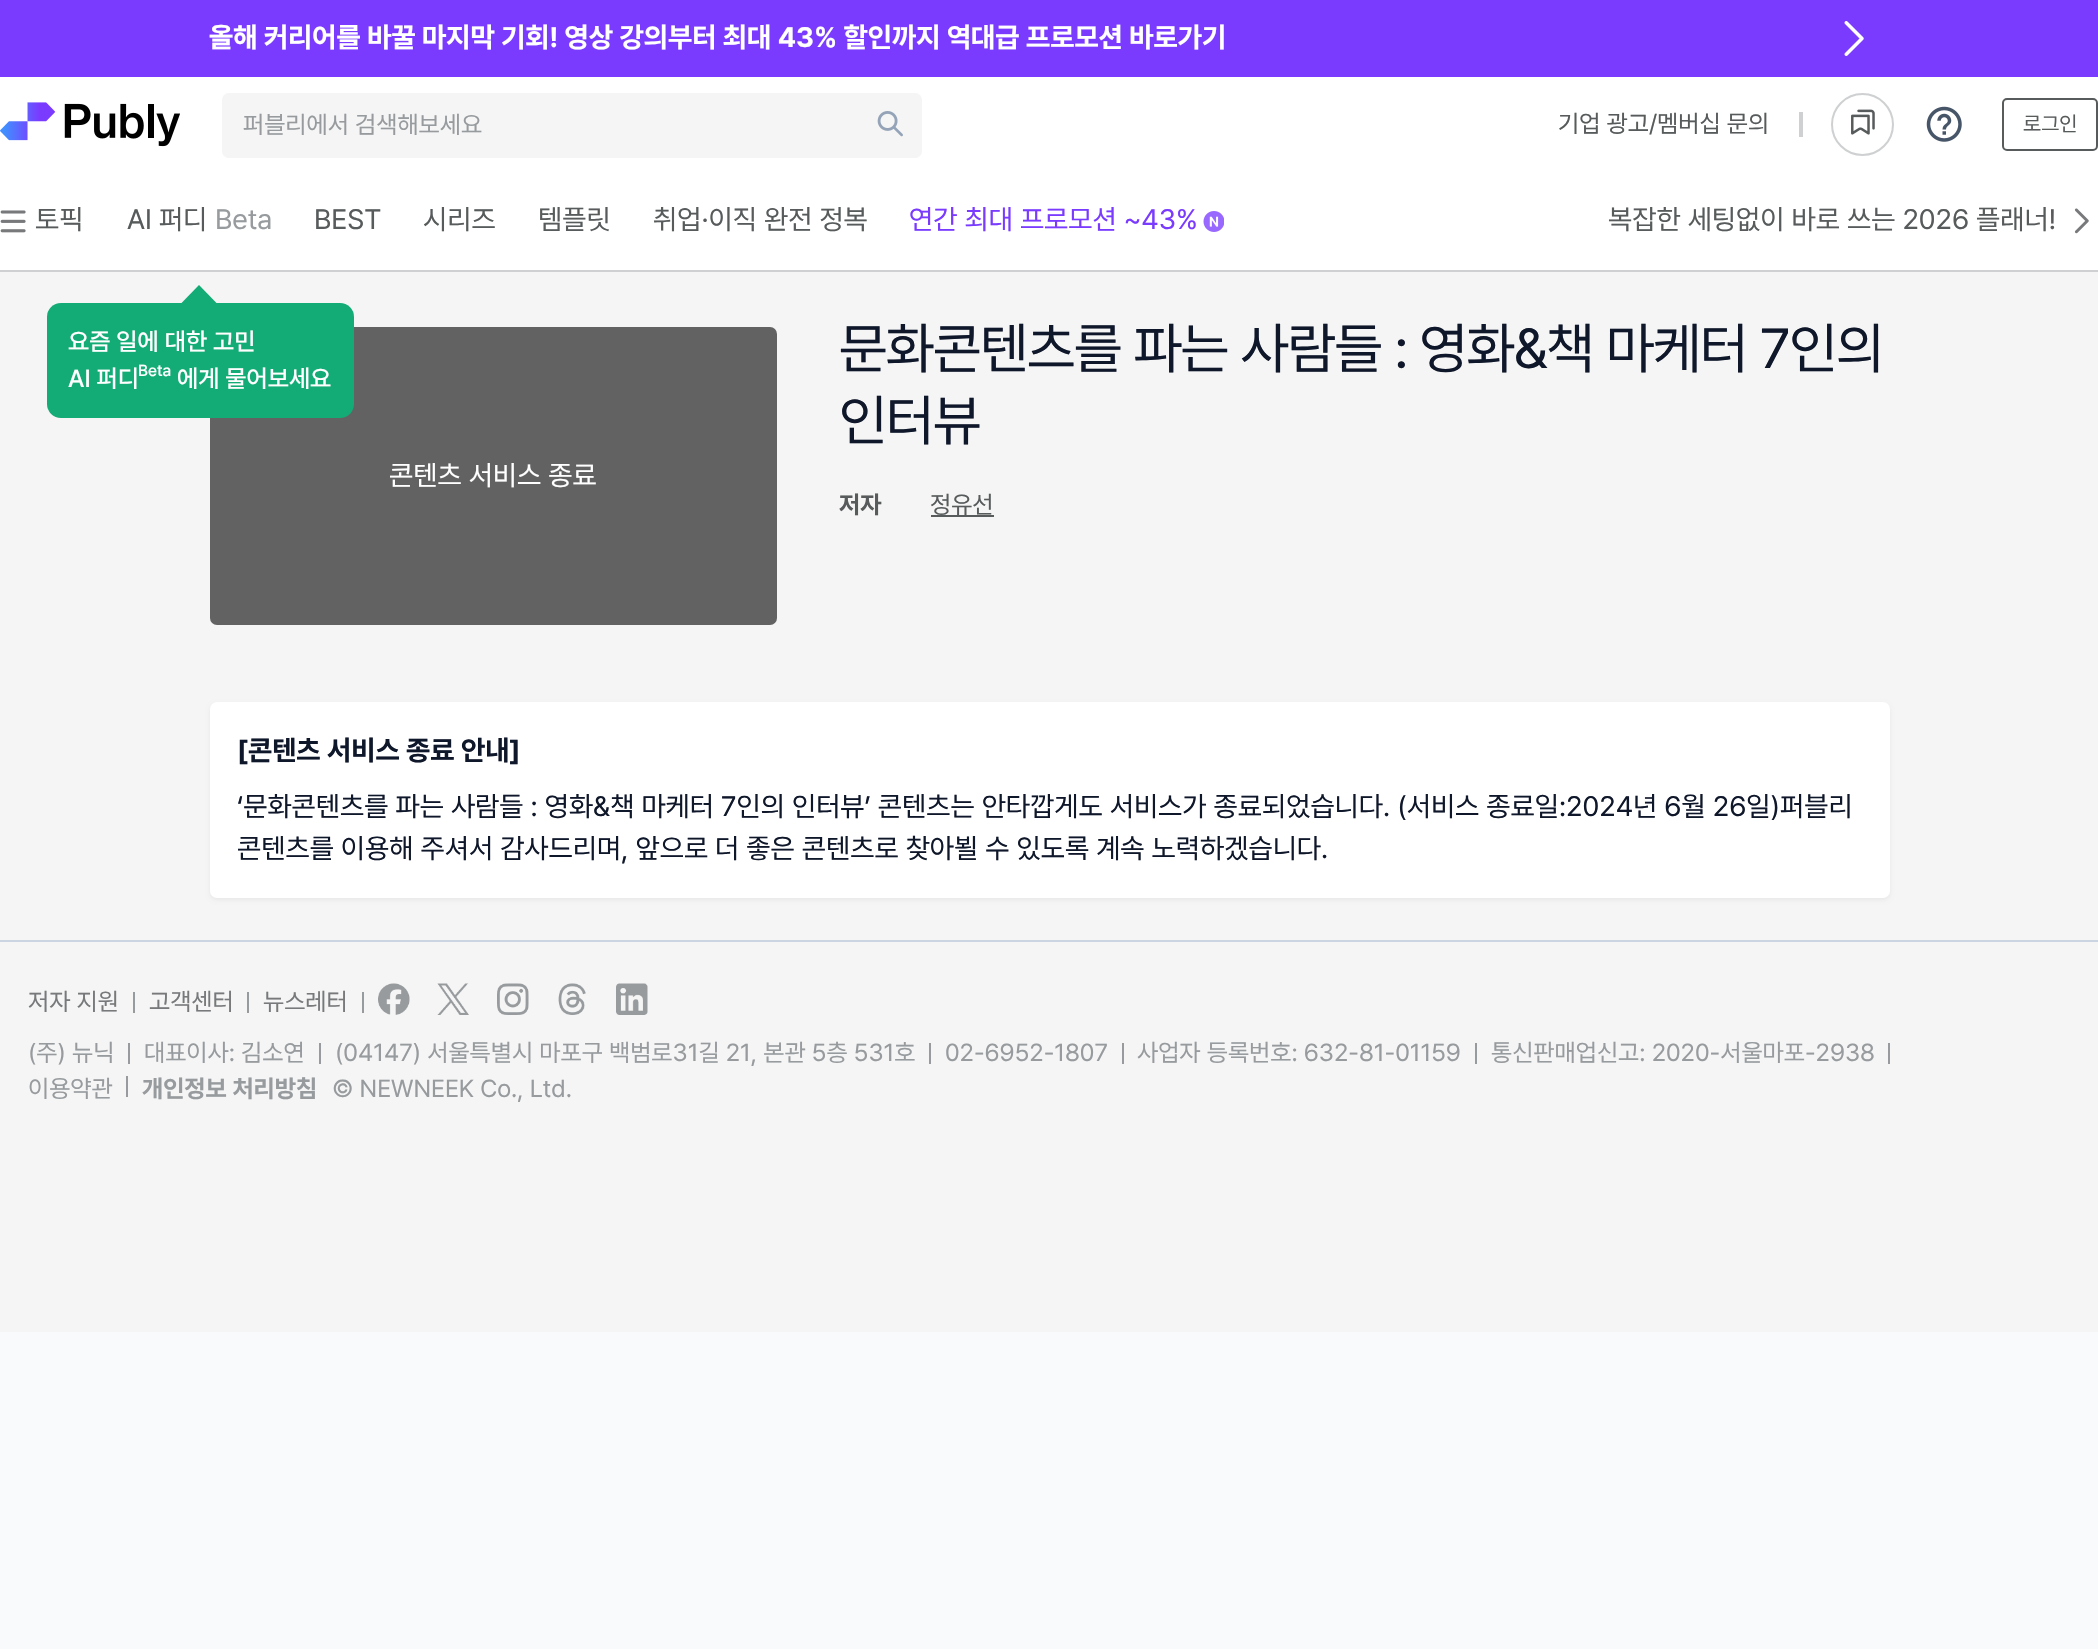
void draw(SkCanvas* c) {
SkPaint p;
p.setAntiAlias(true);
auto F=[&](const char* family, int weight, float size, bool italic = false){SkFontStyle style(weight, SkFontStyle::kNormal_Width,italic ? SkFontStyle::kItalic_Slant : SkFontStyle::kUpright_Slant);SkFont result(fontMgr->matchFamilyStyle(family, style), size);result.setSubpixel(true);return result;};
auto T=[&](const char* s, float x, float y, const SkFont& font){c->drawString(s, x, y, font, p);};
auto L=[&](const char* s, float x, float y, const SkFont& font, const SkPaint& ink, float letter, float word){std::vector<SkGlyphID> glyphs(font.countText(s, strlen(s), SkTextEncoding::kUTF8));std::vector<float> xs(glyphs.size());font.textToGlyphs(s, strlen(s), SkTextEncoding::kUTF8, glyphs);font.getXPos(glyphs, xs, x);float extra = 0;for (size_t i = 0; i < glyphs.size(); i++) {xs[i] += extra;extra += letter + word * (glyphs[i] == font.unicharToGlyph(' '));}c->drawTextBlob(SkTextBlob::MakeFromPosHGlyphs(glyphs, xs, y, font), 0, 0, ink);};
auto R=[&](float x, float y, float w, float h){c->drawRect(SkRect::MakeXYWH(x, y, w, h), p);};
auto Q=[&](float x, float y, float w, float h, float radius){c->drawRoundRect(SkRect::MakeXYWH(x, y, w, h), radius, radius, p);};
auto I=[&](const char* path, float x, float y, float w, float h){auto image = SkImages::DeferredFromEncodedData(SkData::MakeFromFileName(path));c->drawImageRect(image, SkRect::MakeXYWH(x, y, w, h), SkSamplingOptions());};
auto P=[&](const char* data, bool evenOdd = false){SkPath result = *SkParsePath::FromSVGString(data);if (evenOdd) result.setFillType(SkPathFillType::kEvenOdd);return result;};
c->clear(0xfff8fafc);
p.setColor(0xff7a3bff);
R(0,0,2098,77);
auto f1 = F("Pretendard",700,28);
p.setColor(0xffffffff);
T("올해 커리어를 바꿀 마지막 기회! 영상 강의부터 최대 43% 할인까지 역대급 프로모션 바로가기",209,47,f1);
I("1.png",1844,21,20,35);
p.setColor(0xfff5f5f5);
R(0,272,2098,1060);
p.setColor(0xffffffff);
R(0,77,2098,193);
p.setColor(0xffced0d1);
R(0,270,2098,2);
I("2.png",0,102,180,45);
p.setColor(0xfff5f5f5);
Q(222,93,700,65,7);
auto f2 = F("Pretendard",400,24.5);
p.setColor(0xff979b9e);
T("퍼블리에서 검색해보세요",243,133,f2);
I("3.png",877,111,26,26);
p.setColor(0xff575b5c);
T("기업 광고/멤버십 문의",1558,132,f2);
p.setColor(0xffced0d1);
R(1799,112,4,25);
p.setStroke(true);
p.setStrokeWidth(2);
c->drawCircle(1862.5,124.5,30.5,p);
I("4.png",1851,109,24,26);
I("5.png",1926,106,36,36);
p.setColor(0xff575b5c);
c->drawRoundRect(SkRect::MakeXYWH(2003,99,94,51),4,4,p);
auto f3 = F("Pretendard",400,21);
p.setStroke(false);
T("로그인",2023,131,f3);
I("6.png",0,210,26,23);
auto f4 = F("Pretendard",400,28);
T("토픽",35,229,f4);
T("AI 퍼디",127,229,f4);
p.setColor(0xff979b9e);
T("Beta",215,229,f4);
p.setColor(0xff626262);
Q(210,327,567,298,7);
p.setColor(0xff13ab76);
Q(47,303,307,115,14);
c->drawPath(P("M216.5 303h-35l17.5-18z"),p);
auto f5 = F("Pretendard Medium",500,24.5);
p.setColor(0xffffffff);
T("요즘 일에 대한 고민",68,350,f5);
T("AI 퍼디",68,387,f5);
auto f6 = F("Pretendard Medium",500,16);
T("Beta",138,376,f6);
T("에게 물어보세요",177,387,f5);
p.setColor(0xff575b5c);
T("BEST",314,229,f4);
T("시리즈",423,229,f4);
T("템플릿",538,229,f4);
T("취업·이직 완전 정복",653,229,f4);
p.setColor(0xff7a3bff);
T("연간 최대 프로모션 ~43%",909,229,f4);
I("7.png",1203,211,21,21);
p.setColor(0xff575b5c);
T("복잡한 세팅없이 바로 쓰는 2026 플래너!",1608,229,f4);
I("8.png",2074,208,15,26);
p.setColor(0xffffffff);
T("콘텐츠 서비스 종료",389,485,f4);
auto f7 = F("Pretendard",400,56);
p.setColor(0xff0f172a);
L("문화콘텐츠를 파는 사람들 : 영화&책 마케터 7인의",839,368,f7,p,-1.4,0);
L("인터뷰",839,440,f7,p,-1.4,0);
auto f8 = F("Pretendard",700,24.5);
p.setColor(0xff575b5c);
T("저자",839,513,f8);
T("정유선",930,513,f2);
R(931,515,63,2);
p.setColor(0x0d000000);
p.setMaskFilter(SkMaskFilter::MakeBlur(kNormal_SkBlurStyle, 2));
c->drawRoundRect(SkRect::MakeXYWH(210,704,1680,196),7,7,p);
p.setMaskFilter(nullptr);
p.setColor(0xffffffff);
Q(210,702,1680,196,7);
p.setColor(0xff0f172a);
T("[콘텐츠 서비스 종료 안내]",237,760,f1);
T("‘문화콘텐츠를 파는 사람들 : 영화&책 마케터 7인의 인터뷰’ 콘텐츠는 안타깝게도 서비스가 종료되었습니다. (서비스 종료일:2024년 6월 26일)퍼블리",237,816,f4);
T("콘텐츠를 이용해 주셔서 감사드리며, 앞으로 더 좋은 콘텐츠로 찾아뵐 수 있도록 계속 노력하겠습니다.",237,858,f4);
p.setColor(0xffcbd5e1);
R(0,940,2098,2);
p.setColor(0xff77797b);
T("저자 지원",28,1010,f2);
p.setColor(0xff979b9e);
R(133,992,2,21);
p.setColor(0xff77797b);
T("고객센터",149,1010,f2);
p.setColor(0xff979b9e);
R(247,992,2,21);
p.setColor(0xff77797b);
T("뉴스레터",263,1010,f2);
p.setColor(0xff979b9e);
R(362,992,2,21);
I("9.png",378,983,32,32);
I("10.png",437,983,32,32);
I("11.png",497,983,32,32);
I("12.png",558,983,28,32);
I("13.png",616,983,32,32);
T("(주) 뉴닉",28,1061,f2);
R(128,1043,2,21);
T("대표이사: 김소연",144,1061,f2);
R(319,1043,2,21);
T("(04147) 서울특별시 마포구 백범로31길 21, 본관 5층 531호",335,1061,f2);
R(929,1043,2,21);
T("02-6952-1807",945,1061,f2);
R(1122,1043,2,21);
T("사업자 등록번호: 632-81-01159",1137,1061,f2);
R(1475,1043,2,21);
T("통신판매업신고: 2020-서울마포-2938",1491,1061,f2);
R(1888,1043,2,21);
T("이용약관",28,1097,f2);
R(126,1076,2,21);
T("개인정보 처리방침",142,1097,f8);
T("© NEWNEEK Co., Ltd.",332,1097,f2);
}
